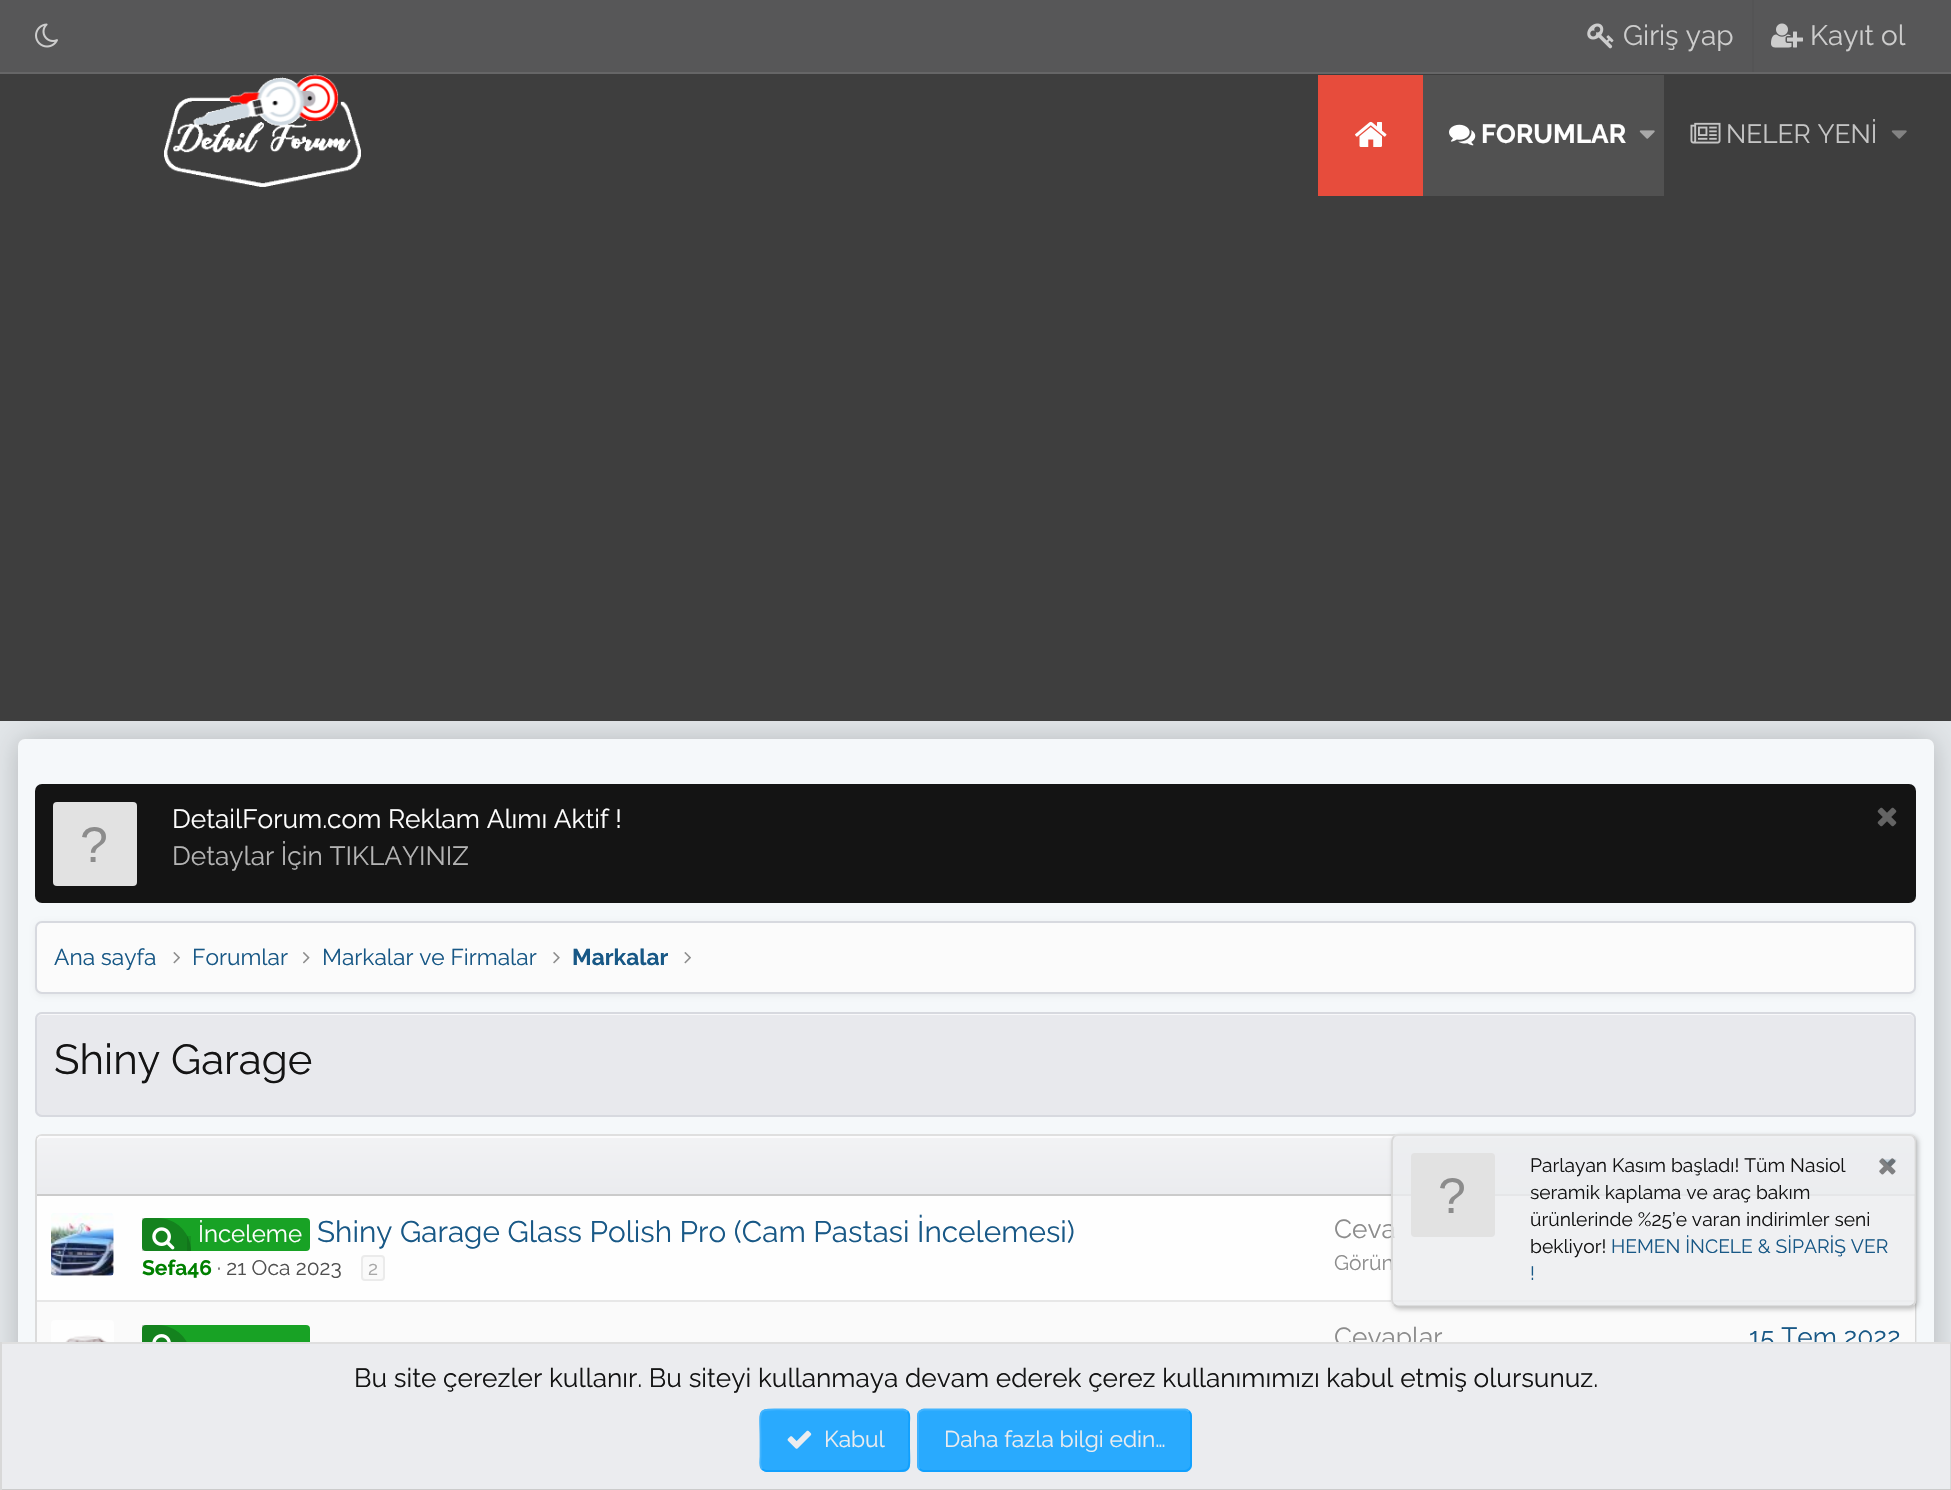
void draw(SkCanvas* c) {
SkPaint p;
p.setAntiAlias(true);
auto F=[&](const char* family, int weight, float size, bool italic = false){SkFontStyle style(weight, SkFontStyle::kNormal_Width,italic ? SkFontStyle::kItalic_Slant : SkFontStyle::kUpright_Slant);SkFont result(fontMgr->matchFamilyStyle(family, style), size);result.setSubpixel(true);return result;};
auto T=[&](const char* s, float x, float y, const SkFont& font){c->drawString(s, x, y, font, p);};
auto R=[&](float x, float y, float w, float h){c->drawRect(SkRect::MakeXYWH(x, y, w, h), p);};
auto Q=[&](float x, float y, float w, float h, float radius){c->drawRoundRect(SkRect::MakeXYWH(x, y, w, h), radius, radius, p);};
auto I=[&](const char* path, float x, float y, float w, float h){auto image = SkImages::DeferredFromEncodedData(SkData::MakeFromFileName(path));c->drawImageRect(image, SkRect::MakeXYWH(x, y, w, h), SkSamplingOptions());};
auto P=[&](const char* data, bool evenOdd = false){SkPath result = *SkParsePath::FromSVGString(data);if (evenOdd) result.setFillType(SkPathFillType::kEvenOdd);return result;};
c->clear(0xffe2e6e9);
p.setColor(0xff575758);
R(0,0,1951,72);
p.setColor(0xff666667);
R(0,72,1951,2);
I("1.png",35,23,23,25);
I("2.png",1587,23,27,26);
auto f1 = F("Raleway",400,28);
p.setColor(0xffcdcdcd);
T("Giriş yap",1623,45,f1);
p.setColor(0xff545455);
R(1752,0,2,72);
I("3.png",1771,23,32,25);
p.setColor(0xffcdcdcd);
T("Kayıt ol",1810,45,f1);
p.setColor(0x33000000);
p.setMaskFilter(SkMaskFilter::MakeBlur(kNormal_SkBlurStyle, 14));
c->drawRoundRect(SkRect::MakeXYWH(18,740,1916,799),7,7,p);
p.setMaskFilter(nullptr);
p.setColor(0xff3e3e3e);
R(0,74,1951,647);
I("4.png",164,74,197,113);
p.setColor(0xffe74c3c);
R(1318,75,105,121);
I("5.png",1355,121,32,26);
p.setColor(0xff515151);
R(1423,75,241,121);
I("6.png",1449,124,27,22);
auto f2 = F("Raleway",700,26.25);
p.setColor(0xfffefefe);
T("FORUMLAR",1481,143,f2);
I("7.png",1639,130,16,9);
I("8.png",1690,122,31,22);
auto f3 = F("Raleway",400,26.25);
p.setColor(0xffc5c5c5);
T("NELER YENİ",1726,143,f3);
I("9.png",1891,130,16,9);
p.setColor(0xfff5f8fa);
Q(18,739,1916,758,7);
p.setColor(0xff141414);
Q(35,784,1881,119,7);
p.setColor(0xffe2e2e2);
Q(53,802,84,84,4);
auto f4 = F("Liberation Sans",400,50);
p.setColor(0xff8c8c8c);
T("?",80,862,f4);
p.setColor(0xfffefefe);
T("DetailForum.com Reklam Alımı Aktif !",172,828,f3);
I("10.png",1877,807,20,20);
p.setColor(0xffb4b4b4);
T("Detaylar İçin TIKLAYINIZ",172,865,f3);
p.setColor(0x0d000000);
p.setMaskFilter(SkMaskFilter::MakeBlur(kNormal_SkBlurStyle, 2.5));
c->drawRoundRect(SkRect::MakeXYWH(35,922,1881,74),7,7,p);
p.setMaskFilter(nullptr);
p.setColor(0xfffbfbfb);
c->drawRoundRect(SkRect::MakeXYWH(36,922,1879,71),6,6,p);
p.setStroke(true);
p.setStrokeWidth(2);
p.setColor(0xffd7d9df);
c->drawRoundRect(SkRect::MakeXYWH(36,922,1879,71),6,6,p);
auto f5 = F("Raleway",400,22.75);
p.setStroke(false);
p.setColor(0xff185886);
T("Ana sayfa",54,965,f5);
I("11.png",173,952,7,12);
T("Forumlar",192,965,f5);
I("12.png",303,952,7,12);
T("Markalar ve Firmalar",322,965,f5);
I("13.png",553,952,7,12);
auto f6 = F("Raleway",700,22.75);
T("Markalar",572,965,f6);
I("11.png",684,952,7,12);
p.setColor(0xffe8e9ed);
Q(35,1012,1881,105,7);
p.setColor(0xfff8f8fa);
c->drawPath(P("M42 1015h1867c3 0 5 2 5 5v91l-1 3c1-1 2-3 2-4v-92c0-3-2-5-5-5h-1868c-3 0-5 2-5 5v2c0-3 2-5 5-5z"),p);
p.setStroke(true);
p.setColor(0xffd7d9df);
c->drawRoundRect(SkRect::MakeXYWH(36,1013,1879,103),6,6,p);
auto f7 = F("Raleway",400,42);
p.setStroke(false);
p.setColor(0xff141414);
T("Shiny Garage",54,1074,f7);
p.setColor(0xfffefefe);
Q(35,1134,1881,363,7);
p.setStroke(true);
p.setStrokeWidth(1.8);
p.setColor(0xffdfdfdf);
c->drawPath(P("M37.5 1136.5c1.5-1 3-1.5 4.5-1.5h1867c2 0 3.5 .5 4.5 1.5"),p);
p.setColor(0xffd8d8d8);
c->drawPath(P("M1913.5 1136.5c1 1.5 2 3 2 4.5v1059c0 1.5-1 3-2 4"),p);
c->drawPath(P("M37.5 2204c-1-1-1.5-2.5-1.5-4v-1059c0-1.5 .5-3 1.5-4.5"),p);
p.setStroke(false);
p.setColor(0xffebecef);
c->drawPath(P("M42 1136h1868c3 0 5 2 5 5v54h-1878v-54c0-3 2-5 5-5z"),p);
{
const SkColor colors[] = {0x59ffffff,0x00ffffff};
const float stops[] = {0,1};
const SkPoint ends[] = {{976,1136}, {976,1194}};
p.setShader(SkGradientShader::MakeLinear(ends, colors, stops, 2, SkTileMode::kClamp));
p.setAlpha(255);
}
c->drawPath(P("M42 1136h1868c3 0 5 2 5 5v53h-1878v-53c0-3 2-5 5-5z"),p);
p.setShader(nullptr);
p.setColor(0xb3ffffff);
c->drawPath(P("M42 1138h1867c3 0 5 2 5 5v51h1v-53c0-3-2-5-5-5h-1868c-3 0-5 2-5 5v2c0-3 2-5 5-5z"),p);
p.setColor(0xffcbcbcb);
R(37,1194,1878,2);
I("14.png",1883,1159,14,8);
I("15.png",51,1213,63,63);
p.setColor(0xff18a225);
Q(142,1218,168,33,4);
p.setColor(0x33000000);
c->drawPath(P("M142 1218h16c18 0 33 15 33 33h-49z"),p);
p.setColor(0x1a000000);
R(187,1236,4,15);
I("16.png",152,1227,23,23);
auto f8 = F("Raleway",400,24);
p.setColor(0xfffefefe);
T("İnceleme",198,1242,f8);
auto f9 = F("Raleway",400,29.75);
p.setColor(0xff185886);
T("Shiny Garage Glass Polish Pro (Cam Pastasi İncelemesi)",317,1242,f9);
auto f10 = F("Raleway",700,21);
p.setColor(0xff008000);
T("Sefa46",142,1275,f10);
auto f11 = F("Raleway",400,21);
p.setColor(0xff505050);
T("· 21 Oca 2023",217,1275,f11);
p.setColor(0xfffafafa);
c->drawRoundRect(SkRect::MakeXYWH(362,1256,22,24),3,3,p);
p.setStroke(true);
p.setStrokeWidth(2);
p.setColor(0xffebebeb);
c->drawRoundRect(SkRect::MakeXYWH(362,1256,22,24),3,3,p);
auto f12 = F("Raleway",400,19.25);
p.setStroke(false);
p.setColor(0xffa7a7a7);
T("2",368,1275,f12);
p.setColor(0xff8c8c8c);
T("Ceva",1334,1238,f3);
T("Görün",1334,1270,f11);
p.setColor(0xfffafafa);
R(37,1302,1878,40);
p.setColor(0xffe7e7e7);
R(37,1300,1878,2);
p.setColor(0xfffefefe);
Q(51,1320,63,63,4);
I("17.png",65,1335,44,7);
p.setColor(0xff18a225);
Q(142,1325,168,33,4);
p.setColor(0x33000000);
c->drawPath(P("M142 1325h16c18 0 33 15 33 33h-49z"),p);
I("18.png",152,1334,19,8);
p.setColor(0xff8c8c8c);
T("Cevaplar",1334,1346,f3);
p.setColor(0xff185886);
T("15 Tem 2022",1749,1346,f3);
c->save();
c->clipPath(P("M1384 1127h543v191h-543zm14 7h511c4 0 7 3 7 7v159c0 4-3 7-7 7h-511c-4 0-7-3-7-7v-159c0-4 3-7 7-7z",true),true);
p.setColor(0x40000000);
p.setMaskFilter(SkMaskFilter::MakeBlur(kNormal_SkBlurStyle, 2.5));
c->drawRoundRect(SkRect::MakeXYWH(1393,1136,525,173),7,7,p);
p.setMaskFilter(nullptr);
c->restore();
p.setColor(0xccebecef);
Q(1391,1134,525,173,7);
p.setStroke(true);
p.setStrokeWidth(1.8);
p.setColor(0xffdfdfdf);
c->drawPath(P("M1394 1136.5c1-1 2.5-1.5 4-1.5h511c2 0 3.5 .5 4.5 1.5"),p);
p.setColor(0xffd8d8d8);
c->drawPath(P("M1913.5 1136.5c1 1.5 2 3 2 4.5v159c0 2-1 3.5-2 4.5"),p);
p.setColor(0xffcbcbcb);
c->drawPath(P("M1913.5 1304.5c-1 1-2.5 2-4.5 2h-511c-1.5 0-3-1-4-2"),p);
p.setColor(0xffd8d8d8);
c->drawPath(P("M1394 1304.5c-1-1-2-2.5-2-4.5v-159c0-1.5 1-3 2-4.5"),p);
p.setStroke(false);
p.setColor(0xffe2e2e2);
Q(1411,1153,84,84,4);
p.setColor(0xff8c8c8c);
T("?",1438,1213,f4);
p.setColor(0xff141414);
T("Parlayan Kasım başladı! Tüm Nasiol",1530,1172,f12);
I("19.png",1879,1158,17,17);
T("seramik kaplama ve araç bakım",1530,1199,f12);
T("ürünlerinde %25’e varan indirimler seni",1530,1226,f12);
T("bekliyor!",1530,1253,f12);
p.setColor(0xff185886);
T("HEMEN İNCELE & SİPARİŞ VER",1611,1253,f12);
T("!",1530,1280,f12);
p.setColor(0xffebecef);
R(2,1344,1948,145);
p.setColor(0xffdfdfdf);
R(0,1342,1951,2);
p.setColor(0xffd8d8d8);
R(1950,1342,1,148);
p.setColor(0xffcbcbcb);
R(0,1489,1951,1);
p.setColor(0xffd8d8d8);
R(0,1342,2,148);
p.setColor(0xff141414);
T("Bu site çerezler kullanır. Bu siteyi kullanmaya devam ederek çerez kullanımımızı kabul etmiş olursunuz.",354,1387,f3);
p.setColor(0xff29aafe);
Q(760,1409,150,63,7);
p.setStroke(true);
p.setColor(0xff10a0fe);
c->drawPath(P("M907.5 1411.5c3 3 1.5 9 1.5 12.5v16c0 35 6 31-29 31h-113.5c-1.5 0-3-1-4.5-2"),p);
p.setColor(0xff42b4fe);
c->drawPath(P("M762 1469c-3-3-1.5-9-1.5-12.5v-16.5c0-34.5-6-30.5 28.5-30.5h114c1.5 0 3 1 4.5 2"),p);
I("20.png",787,1430,25,19);
p.setStroke(false);
p.setColor(0xffebecef);
T("Kabul",824,1447,f5);
p.setColor(0xff29aafe);
Q(917,1409,275,63,7);
p.setStroke(true);
p.setColor(0xff10a0fe);
c->drawPath(P("M1189 1411.5c1 1 2 2.5 2 4.5v49c0 1.5-1 3-2 4c-1 1-2.5 2-4 2h-261c-1.5 0-3-1-4.5-2"),p);
p.setColor(0xff42b4fe);
c->drawPath(P("M919.5 1469c-1-1-1.5-2.5-1.5-4v-49c0-2 .5-3.5 1.5-4.5c1.5-1 3-2 4.5-2h261c1.5 0 3 1 4 2"),p);
p.setStroke(false);
p.setColor(0xffebecef);
T("Daha fazla bilgi edin…",944,1447,f5);
}
